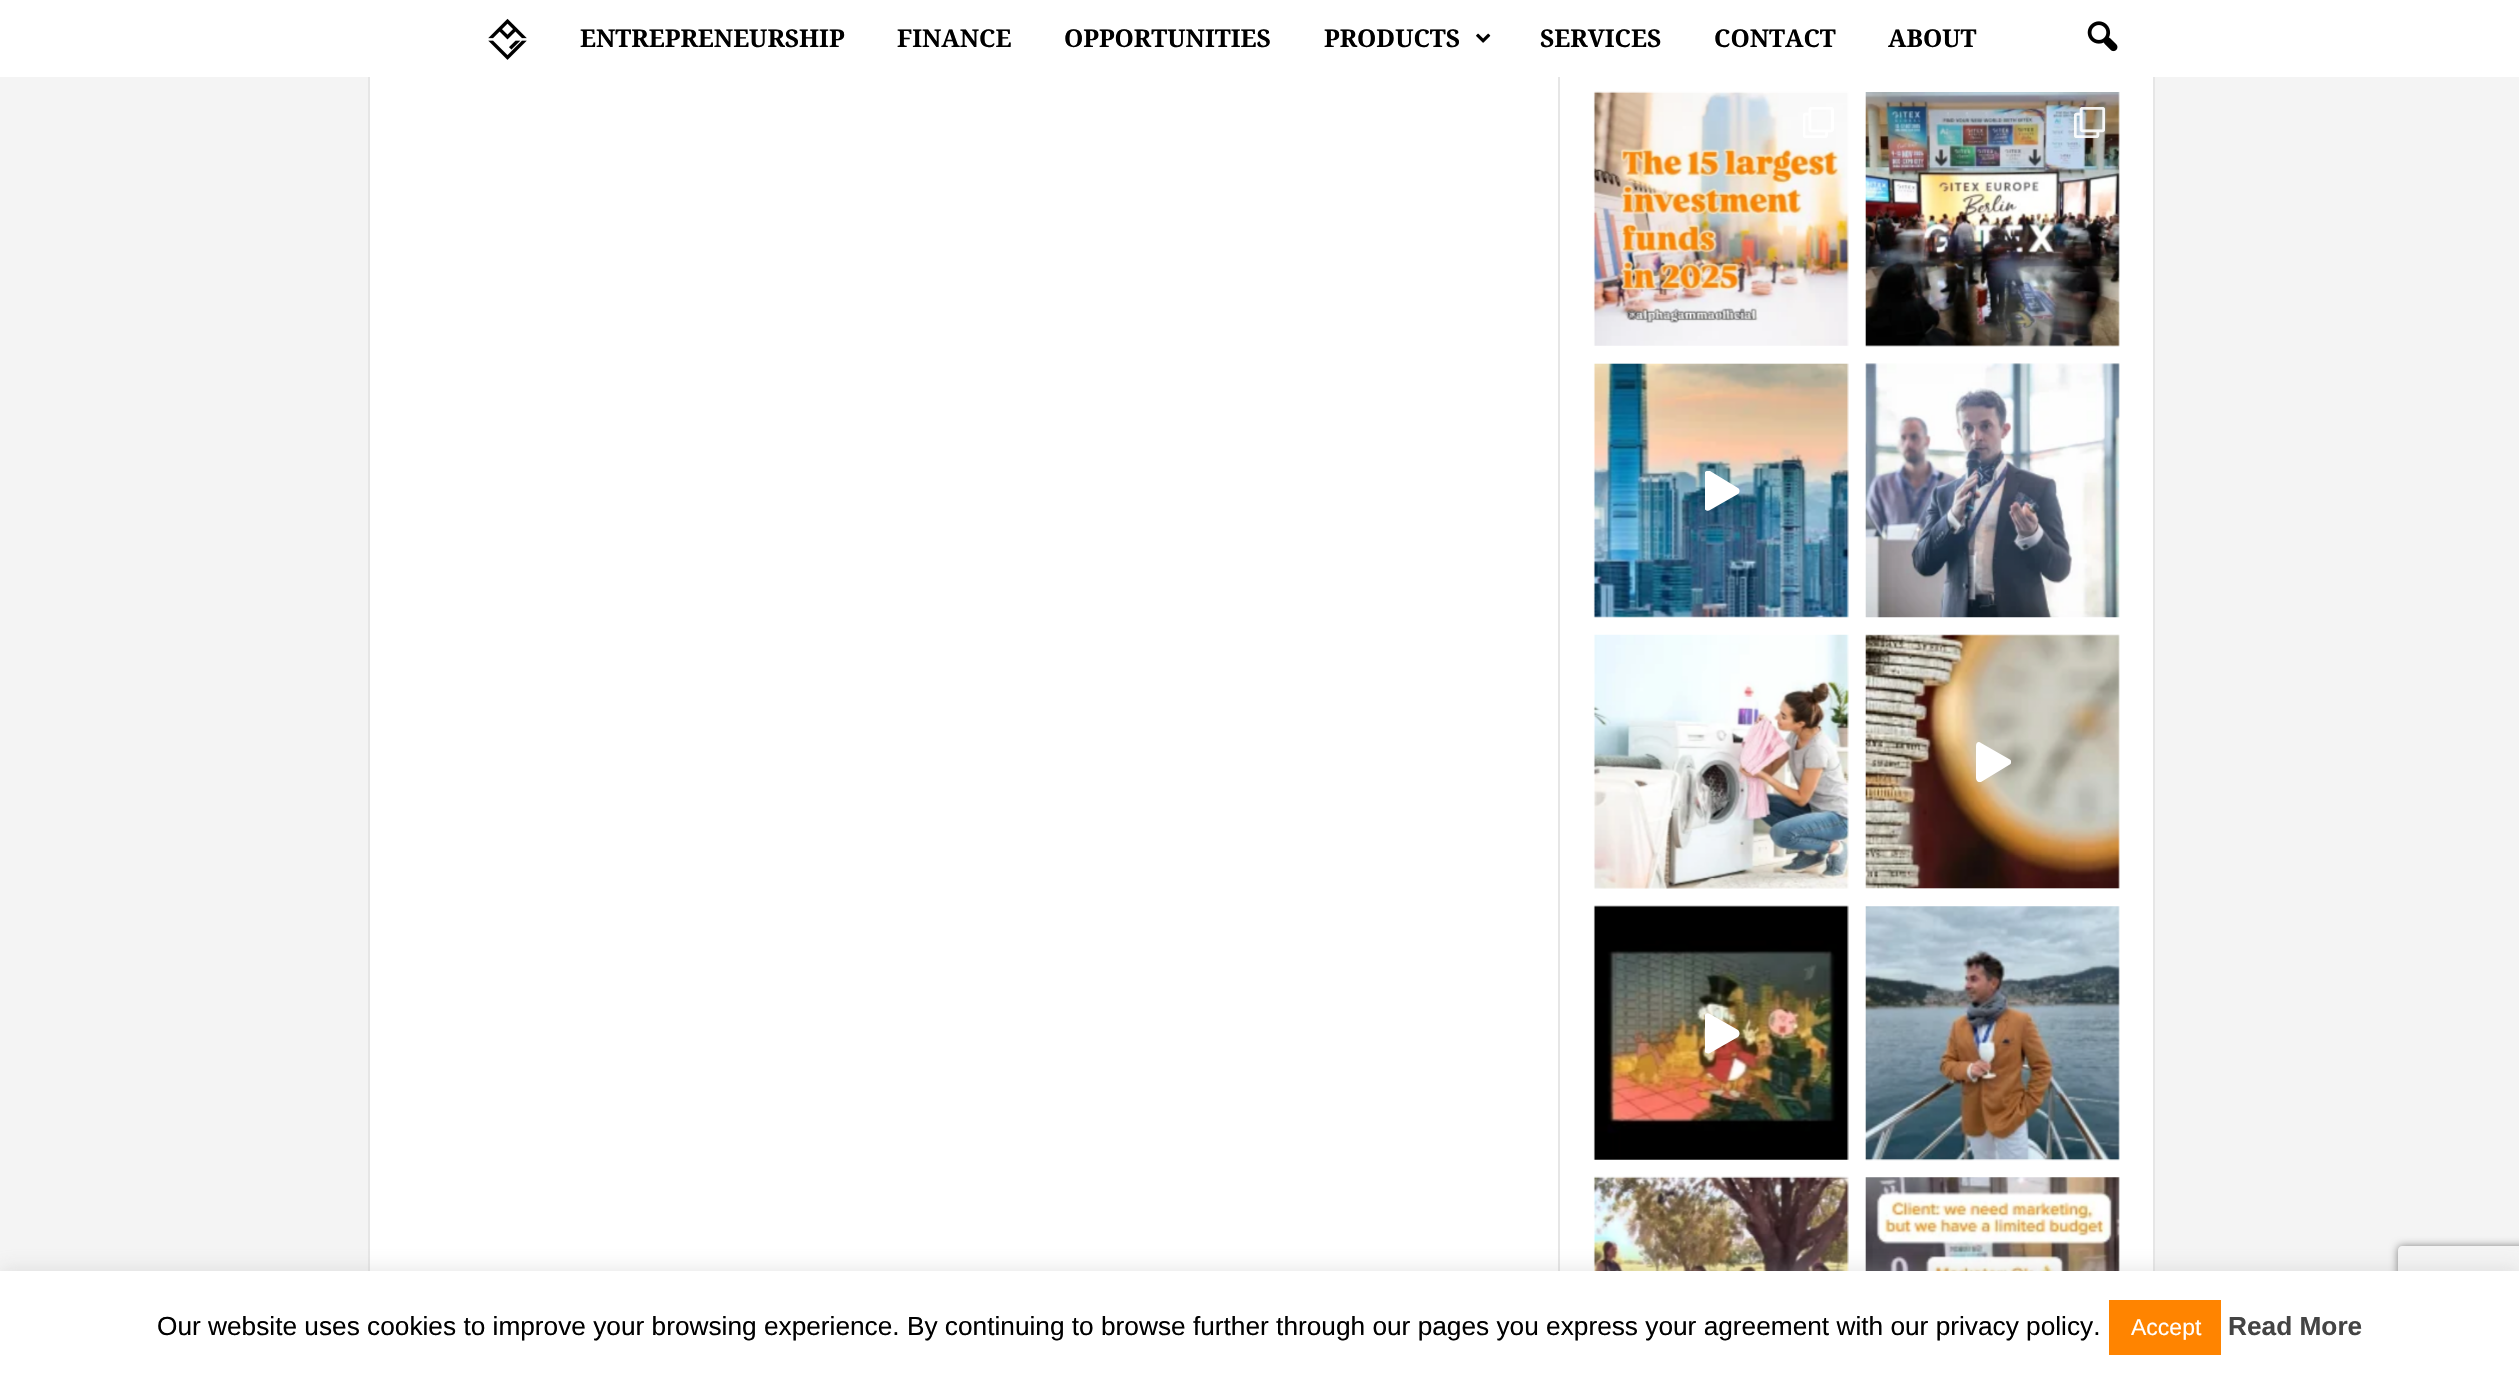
void draw(SkCanvas* c) {
SkPaint p;
p.setAntiAlias(true);
auto F=[&](const char* family, int weight, float size, bool italic = false){SkFontStyle style(weight, SkFontStyle::kNormal_Width,italic ? SkFontStyle::kItalic_Slant : SkFontStyle::kUpright_Slant);SkFont result(fontMgr->matchFamilyStyle(family, style), size);result.setSubpixel(true);return result;};
auto T=[&](const char* s, float x, float y, const SkFont& font){c->drawString(s, x, y, font, p);};
auto R=[&](float x, float y, float w, float h){c->drawRect(SkRect::MakeXYWH(x, y, w, h), p);};
auto I=[&](const char* path, float x, float y, float w, float h){auto image = SkImages::DeferredFromEncodedData(SkData::MakeFromFileName(path));c->drawImageRect(image, SkRect::MakeXYWH(x, y, w, h), SkSamplingOptions());};
auto P=[&](const char* data, bool evenOdd = false){SkPath result = *SkParsePath::FromSVGString(data);if (evenOdd) result.setFillType(SkPathFillType::kEvenOdd);return result;};
c->clear(0xfff4f4f4);
p.setColor(0xffffffff);
R(0,0,2519,77);
I("1.png",488,18,39,42);
auto f1 = F("Noto Serif",700,24.5);
p.setColor(0xff000000);
T("ENTREPRENEURSHIP",580,47,f1);
T("FINANCE",897,47,f1);
T("OPPORTUNITIES",1064,47,f1);
T("PRODUCTS",1324,47,f1);
I("2.png",1476,33,15,10);
T("SERVICES",1540,47,f1);
T("CONTACT",1714,47,f1);
T("ABOUT",1888,47,f1);
I("3.png",2087,21,31,31);
p.setColor(0xffffffff);
R(370,77,1783,1194);
p.setColor(0xffe6e6e6);
R(368,77,2,1194);
R(1558,77,2,1194);
I("4.png",1593,91,256,255);
I("5.png",1803,107,31,31);
I("6.png",1865,92,255,255);
I("7.png",2074,107,31,31);
I("8.png",1593,363,256,255);
c->save();
c->clipRect(SkRect::MakeXYWH(1705,471,35,40));
p.setColor(0xffffffff);
c->drawPath(P("M1738 488l-28-17c-2-1-6 0-6 4v32c0 3 4 5 6 3l28-16c2-1 2-5 0-6z"),p);
c->restore();
I("9.png",1865,363,255,255);
I("10.png",1593,634,256,255);
I("11.png",1865,634,255,255);
c->save();
c->clipRect(SkRect::MakeXYWH(1976,742,35,40));
c->drawPath(P("M2009 759l-28-16c-2-2-5-1-5 3v32c0 3 3 5 5 4l28-17c3-1 3-5 0-6z"),p);
c->restore();
I("12.png",1593,905,256,255);
c->save();
c->clipRect(SkRect::MakeXYWH(1705,1013,35,41));
c->drawPath(P("M1738 1030l-28-16c-2-2-6 0-6 3v33c0 3 4 4 6 3l28-16c2-2 2-5 0-7z"),p);
c->restore();
I("13.png",1865,906,255,255);
I("14.png",1593,1176,256,95);
I("15.png",1865,1177,255,94);
p.setColor(0xffe6e6e6);
R(2153,77,2,1194);
p.setColor(0x4dacabab);
p.setMaskFilter(SkMaskFilter::MakeBlur(kNormal_SkBlurStyle, 9));
c->drawRect(SkRect::MakeXYWH(0,1269,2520,105),p);
p.setMaskFilter(nullptr);
c->save();
c->clipPath(P("M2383 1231h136v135h-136zm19 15h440c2 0 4 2 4 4v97c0 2-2 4-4 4h-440c-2 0-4-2-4-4v-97c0-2 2-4 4-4z",true),true);
p.setColor(0xff808080);
p.setMaskFilter(SkMaskFilter::MakeBlur(kNormal_SkBlurStyle, 4.5));
c->drawRoundRect(SkRect::MakeXYWH(2398,1246,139,105),4,4,p);
p.setMaskFilter(nullptr);
c->restore();
p.setColor(0xffffffff);
R(0,1271,2519,104);
auto f2 = F("Liberation Sans",400,26.25);
p.setColor(0xff000000);
T("Our website uses cookies to improve your browsing experience. By continuing to browse further through our pages you express your agreement with our privacy policy.",157,1335,f2);
p.setColor(0xffff8400);
R(2109,1300,112,55);
auto f3 = F("Liberation Sans",400,23);
p.setColor(0xffffffff);
T("Accept",2131,1335,f3);
auto f4 = F("Liberation Sans",700,26.25);
p.setColor(0xff444444);
T("Read More",2228,1335,f4);
}
